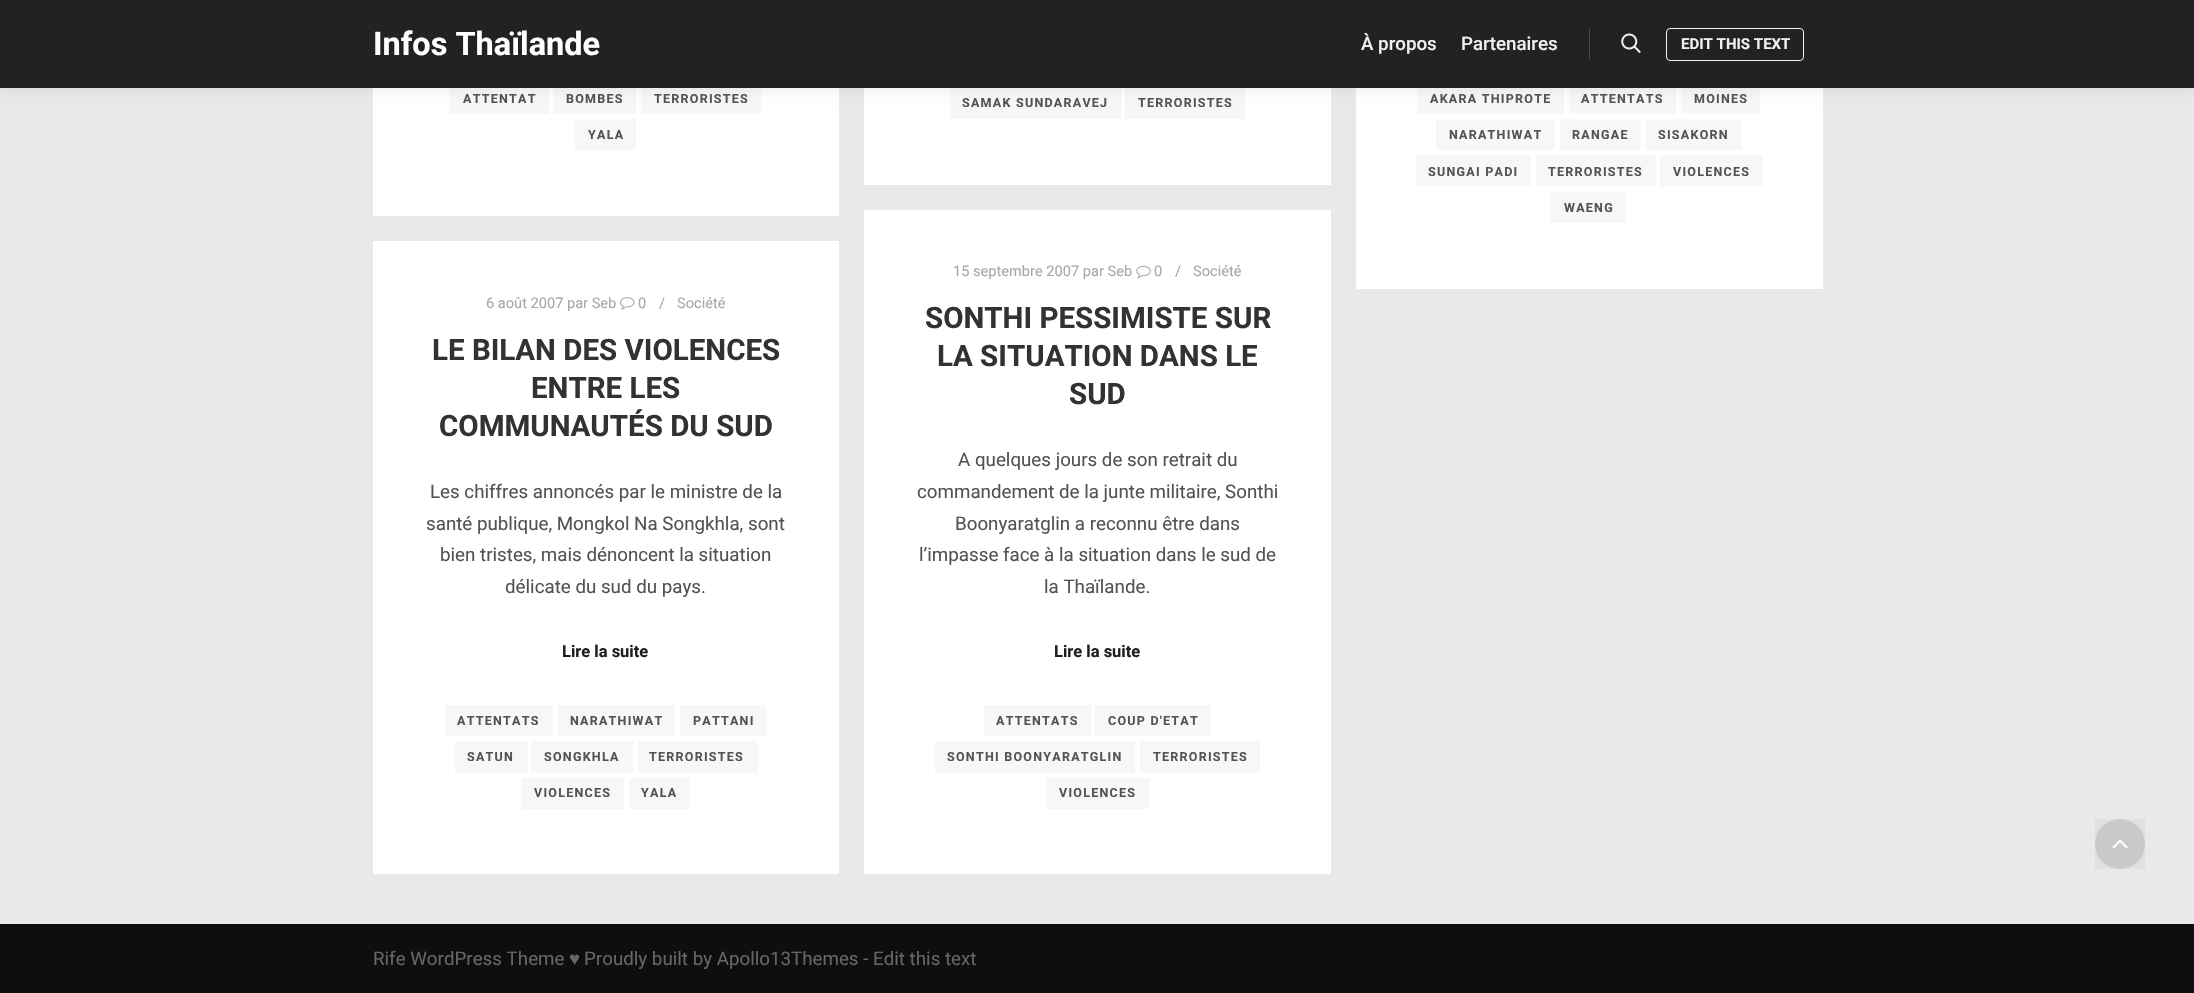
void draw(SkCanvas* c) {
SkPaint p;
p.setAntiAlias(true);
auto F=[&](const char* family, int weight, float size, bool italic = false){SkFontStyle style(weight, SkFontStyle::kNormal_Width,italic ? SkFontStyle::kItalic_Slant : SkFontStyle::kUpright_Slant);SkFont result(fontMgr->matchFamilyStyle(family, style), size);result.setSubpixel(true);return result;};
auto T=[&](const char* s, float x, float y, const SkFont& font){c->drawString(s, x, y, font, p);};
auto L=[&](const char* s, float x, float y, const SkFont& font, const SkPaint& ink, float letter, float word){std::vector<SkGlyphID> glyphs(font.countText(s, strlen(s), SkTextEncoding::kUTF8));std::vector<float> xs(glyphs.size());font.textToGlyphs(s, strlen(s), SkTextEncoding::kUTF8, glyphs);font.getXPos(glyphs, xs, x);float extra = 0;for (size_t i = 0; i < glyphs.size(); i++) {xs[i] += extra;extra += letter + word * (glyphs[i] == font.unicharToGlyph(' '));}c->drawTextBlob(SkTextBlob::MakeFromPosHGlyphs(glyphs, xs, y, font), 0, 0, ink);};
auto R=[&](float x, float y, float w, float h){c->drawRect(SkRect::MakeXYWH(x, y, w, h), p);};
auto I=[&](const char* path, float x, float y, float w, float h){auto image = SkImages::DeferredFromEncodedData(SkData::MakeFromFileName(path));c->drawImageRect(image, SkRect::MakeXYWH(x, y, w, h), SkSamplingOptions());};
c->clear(0xffe9e9e9);
p.setColor(0xffffffff);
R(373,88,466,128);
p.setColor(0xfff7f7f7);
R(450,88,99,26);
R(554,88,82,26);
R(641,88,120,26);
p.setColor(0xffffffff);
R(864,88,467,97);
p.setColor(0xfff7f7f7);
R(950,88,171,31);
R(1125,88,120,31);
p.setColor(0xffffffff);
R(1356,88,467,201);
p.setColor(0xfff7f7f7);
R(1418,88,146,26);
R(1569,88,107,26);
R(1681,88,79,26);
p.setColor(0x17000000);
p.setMaskFilter(SkMaskFilter::MakeBlur(kNormal_SkBlurStyle, 7.5));
c->drawRect(SkRect::MakeXYWH(0,0,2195,88),p);
p.setMaskFilter(nullptr);
p.setColor(0xff222222);
R(0,0,2194,88);
auto f1 = F("Roboto",700,32.5);
p.setColor(0xffffffff);
T("Infos Thaïlande",373,55,f1);
auto f2 = F("Roboto",500,18.75);
p.setColor(0xfff0f0f0);
T("À propos",1361,50,f2);
T("Partenaires",1461,50,f2);
p.setColor(0xff4b4b4b);
R(1589,29,1,31);
I("1.png",1621,33,20,21);
p.setStroke(true);
p.setStrokeWidth(1);
p.setColor(0xfff0f0f0);
c->drawRoundRect(SkRect::MakeXYWH(1666.5,28.5,137,32),3.5,3.5,p);
auto f3 = F("Roboto",700,15);
p.setStroke(false);
T("EDIT THIS TEXT",1681,49,f3);
auto f4 = F("Roboto",700,12.5);
p.setColor(0xff535353);
L("ATTENTAT",463,103,f4,p,1.25,0);
L("BOMBES",566,103,f4,p,1.25,0);
L("TERRORISTES",654,103,f4,p,1.25,0);
p.setColor(0xfff7f7f7);
R(575,119,61,31);
p.setColor(0xff535353);
L("YALA",588,139,f4,p,1.25,0);
L("SAMAK SUNDARAVEJ",962,107,f4,p,1.25,0);
L("TERRORISTES",1138,107,f4,p,1.25,0);
L("AKARA THIPROTE",1430,103,f4,p,1.25,0);
L("ATTENTATS",1581,103,f4,p,1.25,0);
L("MOINES",1694,103,f4,p,1.25,0);
p.setColor(0xfff7f7f7);
R(1436,119,119,31);
p.setColor(0xff535353);
L("NARATHIWAT",1449,139,f4,p,1.25,0);
p.setColor(0xfff7f7f7);
R(1560,119,81,31);
p.setColor(0xff535353);
L("RANGAE",1572,139,f4,p,1.25,0);
p.setColor(0xfff7f7f7);
R(1646,119,95,31);
p.setColor(0xff535353);
L("SISAKORN",1658,139,f4,p,1.25,0);
p.setColor(0xfff7f7f7);
R(1416,155,115,31);
p.setColor(0xff535353);
L("SUNGAI PADI",1428,176,f4,p,1.25,0);
p.setColor(0xfff7f7f7);
R(1536,155,120,31);
p.setColor(0xff535353);
L("TERRORISTES",1548,176,f4,p,1.25,0);
p.setColor(0xfff7f7f7);
R(1660,155,103,31);
p.setColor(0xff535353);
L("VIOLENCES",1673,176,f4,p,1.25,0);
p.setColor(0xfff7f7f7);
R(1551,191,75,32);
p.setColor(0xff535353);
L("WAENG",1564,212,f4,p,1.25,0);
p.setColor(0xffffffff);
R(373,241,466,633);
auto f5 = F("Roboto",400,14.6);
p.setColor(0xffa7a7a7);
T("6 août 2007 par Seb",486,308,f5);
I("2.png",620,297,15,13);
T("0",638,308,f5);
T("/",659,308,f5);
T("Société",677,308,f5);
auto f6 = F("Roboto",700,29.5);
p.setColor(0xff323232);
T("LE BILAN DES VIOLENCES",432,360,f6);
T("ENTRE LES",531,398,f6);
T("COMMUNAUTÉS DU SUD",439,436,f6);
auto f7 = F("Roboto",400,18.75);
p.setColor(0xff535353);
T("Les chiffres annoncés par le ministre de la",430,498,f7);
T("santé publique, Mongkol Na Songkhla, sont",426,530,f7);
T("bien tristes, mais dénoncent la situation",440,561,f7);
T("délicate du sud du pays.",505,593,f7);
auto f8 = F("Roboto",700,16.5);
p.setColor(0xff1f1f1f);
T("Lire la suite",562,657,f8);
p.setColor(0xfff7f7f7);
R(445,705,108,31);
p.setColor(0xff535353);
L("ATTENTATS",457,725,f4,p,1.25,0);
p.setColor(0xfff7f7f7);
R(558,705,117,31);
p.setColor(0xff535353);
L("NARATHIWAT",570,725,f4,p,1.25,0);
p.setColor(0xfff7f7f7);
R(680,705,86,31);
p.setColor(0xff535353);
L("PATTANI",693,725,f4,p,1.25,0);
p.setColor(0xfff7f7f7);
R(455,741,73,32);
p.setColor(0xff535353);
L("SATUN",467,761,f4,p,1.25,0);
p.setColor(0xfff7f7f7);
R(531,741,102,32);
p.setColor(0xff535353);
L("SONGKHLA",544,761,f4,p,1.25,0);
p.setColor(0xfff7f7f7);
R(638,741,120,32);
p.setColor(0xff535353);
L("TERRORISTES",649,761,f4,p,1.25,0);
p.setColor(0xfff7f7f7);
R(521,778,103,31);
p.setColor(0xff535353);
L("VIOLENCES",534,797,f4,p,1.25,0);
p.setColor(0xfff7f7f7);
R(629,778,61,31);
p.setColor(0xff535353);
L("YALA",641,797,f4,p,1.25,0);
p.setColor(0xffffffff);
R(864,210,467,664);
p.setColor(0xffa7a7a7);
T("15 septembre 2007 par Seb",953,276,f5);
I("3.png",1136,265,15,14);
T("0",1154,276,f5);
T("/",1175,276,f5);
T("Société",1193,276,f5);
p.setColor(0xff323232);
T("SONTHI PESSIMISTE SUR",925,328,f6);
T("LA SITUATION DANS LE",937,366,f6);
T("SUD",1069,404,f6);
p.setColor(0xff535353);
T("A quelques jours de son retrait du",958,466,f7);
T("commandement de la junte militaire, Sonthi",917,498,f7);
T("Boonyaratglin a reconnu être dans",955,530,f7);
T("l’impasse face à la situation dans le sud de",919,561,f7);
T("la Thaïlande.",1044,593,f7);
p.setColor(0xff1f1f1f);
T("Lire la suite",1054,657,f8);
p.setColor(0xfff7f7f7);
R(984,705,107,31);
p.setColor(0xff535353);
L("ATTENTATS",996,725,f4,p,1.25,0);
p.setColor(0xfff7f7f7);
R(1095,705,116,31);
p.setColor(0xff535353);
L("COUP D'ETAT",1108,725,f4,p,1.25,0);
p.setColor(0xfff7f7f7);
R(935,741,200,32);
p.setColor(0xff535353);
L("SONTHI BOONYARATGLIN",947,761,f4,p,1.25,0);
p.setColor(0xfff7f7f7);
R(1140,741,120,32);
p.setColor(0xff535353);
L("TERRORISTES",1153,761,f4,p,1.25,0);
p.setColor(0xfff7f7f7);
R(1046,778,103,31);
p.setColor(0xff535353);
L("VIOLENCES",1059,797,f4,p,1.25,0);
p.setColor(0xffd2d2d2);
c->drawCircle(2120,844,25,p);
p.setColor(0x0a000000);
R(2095,819,50,50);
I("4.png",2112,839,16,10);
p.setColor(0xff0e0e0e);
R(0,924,2194,69);
p.setColor(0xff666666);
T("Rife WordPress Theme",373,965,f7);
auto f9 = F("Liberation Sans",400,18.75);
T("♥",569,965,f9);
T("Proudly built by Apollo13Themes - Edit this text",584,965,f7);
}
